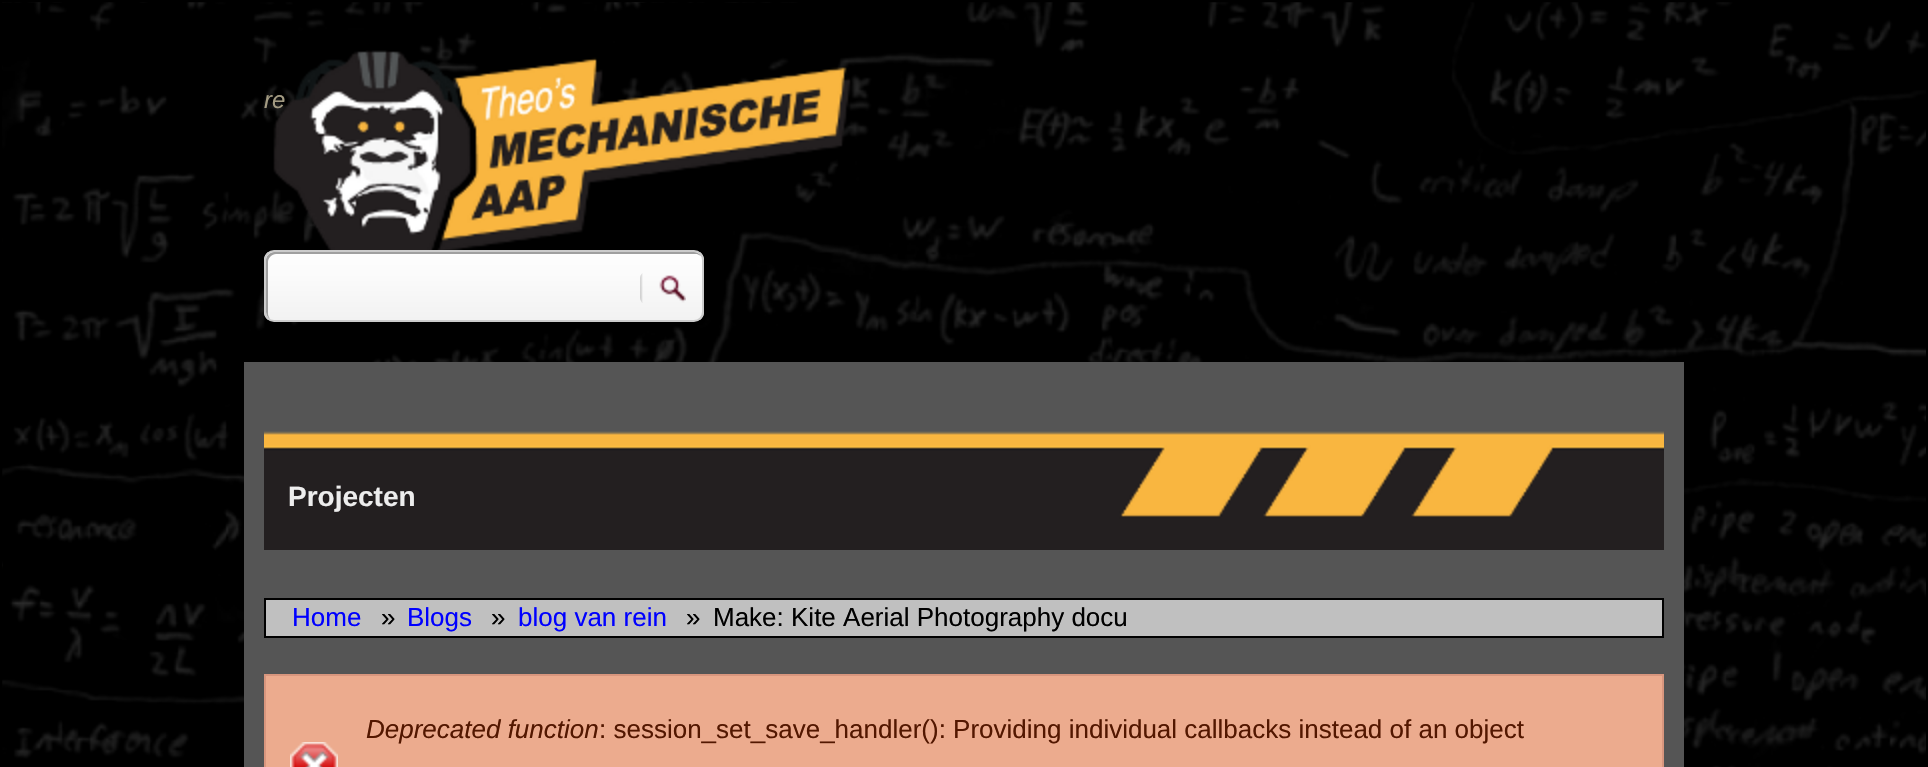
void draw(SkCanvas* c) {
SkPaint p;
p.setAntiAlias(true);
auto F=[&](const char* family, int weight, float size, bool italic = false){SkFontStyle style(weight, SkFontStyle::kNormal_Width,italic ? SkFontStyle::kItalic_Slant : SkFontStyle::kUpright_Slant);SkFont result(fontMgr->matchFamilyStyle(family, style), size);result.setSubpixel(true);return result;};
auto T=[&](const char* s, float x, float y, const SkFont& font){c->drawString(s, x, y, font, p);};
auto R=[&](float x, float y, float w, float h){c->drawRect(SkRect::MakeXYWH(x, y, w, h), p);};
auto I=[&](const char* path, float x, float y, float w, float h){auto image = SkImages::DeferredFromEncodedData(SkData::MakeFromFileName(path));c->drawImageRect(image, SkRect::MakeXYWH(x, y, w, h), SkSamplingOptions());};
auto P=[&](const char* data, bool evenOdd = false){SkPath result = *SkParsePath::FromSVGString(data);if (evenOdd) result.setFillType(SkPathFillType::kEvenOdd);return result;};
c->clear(0xffffffff);
I("1.png",2,2,1924,765);
p.setStroke(true);
p.setStrokeWidth(2);
p.setColor(0xff000000);
c->drawRect(SkRect::MakeXYWH(1,1,1926,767),p);
auto f1 = F("Liberation Sans",400,24,true);
p.setStroke(false);
p.setColor(0xffa39b82);
T("re",264,108,f1);
I("2.png",273,50,578,200);
c->save();
c->clipPath(P("M274 250h420c5.5 0 10 4.5 10 10v52c0 5.5-4.5 10-10 10h-420c-5.5 0-10-4.5-10-10v-52c0-5.5 4.5-10 10-10z"),true);
{
const SkColor colors[] = {0xffffffff,0xfff2f2f2};
const float stops[] = {0,1};
const SkPoint ends[] = {{484,252}, {484,320}};
p.setShader(SkGradientShader::MakeLinear(ends, colors, stops, 2, SkTileMode::kClamp));
p.setAlpha(255);
}
R(264,252,440,68);
c->restore();
p.setShader(nullptr);
p.setColor(0xffa0a0a0);
c->drawPath(P("M276 254h421l4 2c-1-2-4-4-7-4h-420c-4 0-8 4-8 8v52c0 3 2 6 4 7c-1-2-2-3-2-5v-52c0-4 4-8 8-8z"),p);
p.setStroke(true);
p.setColor(0xffcccccc);
c->drawRoundRect(SkRect::MakeXYWH(265,251,438,70),9,9,p);
I("3.png",640,273,46,30);
p.setStroke(false);
p.setColor(0xff555555);
R(244,362,1440,405);
I("4.png",264,431,1400,119);
auto f2 = F("Liberation Sans",700,28);
p.setColor(0xffededed);
T("Projecten",288,506,f2);
p.setColor(0xffc0c0c0);
c->drawRect(SkRect::MakeXYWH(265,599,1398,38),p);
p.setStroke(true);
p.setColor(0xff000000);
c->drawRect(SkRect::MakeXYWH(265,599,1398,38),p);
auto f3 = F("Liberation Sans",400,26);
p.setStroke(false);
p.setColor(0xff0000ff);
T("Home",292,626,f3);
p.setColor(0xff000000);
T("»",381,626,f3);
p.setColor(0xff0000ff);
T("Blogs",407,626,f3);
p.setColor(0xff000000);
T("»",491,626,f3);
p.setColor(0xff0000ff);
T("blog van rein",518,626,f3);
p.setColor(0xff000000);
T("»",686,626,f3);
T("Make: Kite Aerial Photography docu",713,626,f3);
p.setColor(0xffecab8e);
R(266,676,1396,91);
I("5.png",290,742,48,25);
p.setStroke(true);
p.setColor(0xffd8967e);
c->drawRect(SkRect::MakeXYWH(265,675,1398,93),p);
auto f4 = F("Liberation Sans",400,26,true);
p.setStroke(false);
p.setColor(0xff531700);
T("Deprecated function",366,738,f4);
T(": session_set_save_handler(): Providing individual callbacks instead of an object",599,738,f3);
}
